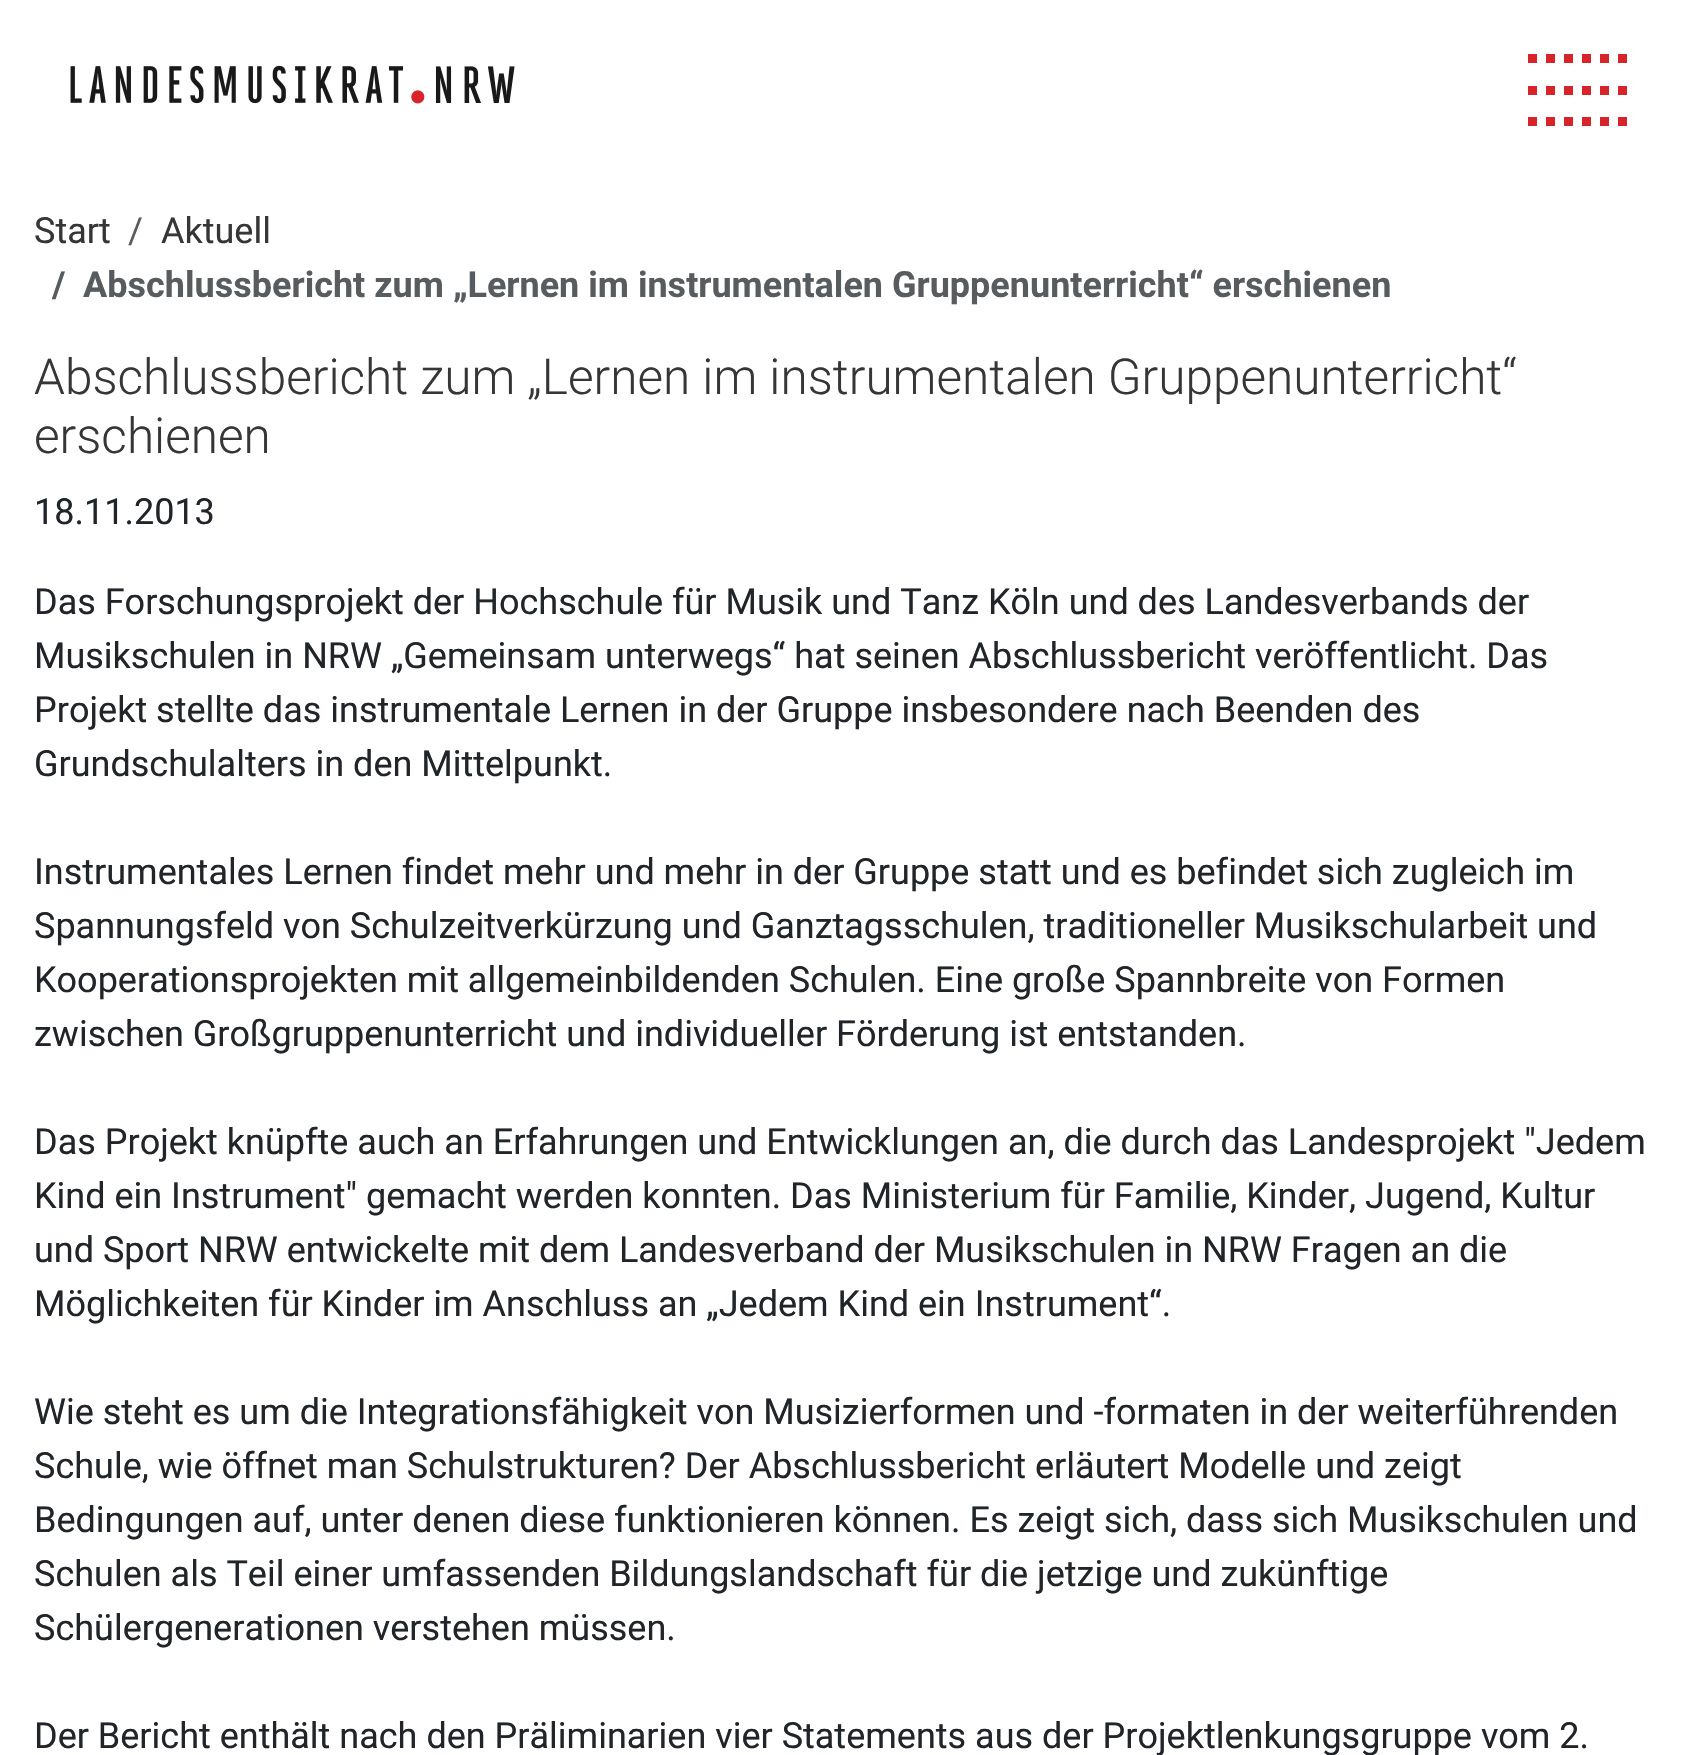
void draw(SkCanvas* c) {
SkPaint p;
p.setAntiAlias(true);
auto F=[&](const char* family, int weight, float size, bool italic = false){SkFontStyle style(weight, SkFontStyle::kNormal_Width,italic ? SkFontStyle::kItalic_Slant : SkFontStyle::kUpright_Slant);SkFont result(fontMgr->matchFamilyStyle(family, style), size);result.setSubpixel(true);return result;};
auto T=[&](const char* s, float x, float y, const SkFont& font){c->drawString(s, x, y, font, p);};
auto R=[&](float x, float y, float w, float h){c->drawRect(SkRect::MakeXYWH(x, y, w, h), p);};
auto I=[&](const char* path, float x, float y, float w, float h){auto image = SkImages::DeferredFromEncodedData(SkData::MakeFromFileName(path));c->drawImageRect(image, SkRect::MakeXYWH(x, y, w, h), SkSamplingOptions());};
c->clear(0xffffffff);
I("1.png",70,65,445,39);
p.setColor(0xffd7232a);
R(1528,54,9,9);
R(1546,54,9,9);
R(1564,54,9,9);
R(1582,54,9,9);
R(1600,54,9,9);
R(1618,54,9,9);
R(1528,86,9,9);
R(1546,86,9,9);
R(1564,86,9,9);
R(1582,86,9,9);
R(1600,86,9,9);
R(1618,86,9,9);
R(1528,117,9,9);
R(1546,117,9,9);
R(1564,117,9,9);
R(1582,117,9,9);
R(1600,117,9,9);
R(1618,117,9,9);
auto f1 = F("Roboto",400,36);
p.setColor(0xff363636);
T("Start",34,243,f1);
p.setColor(0xff595c5f);
T("/",128,243,f1);
p.setColor(0xff363636);
T("Aktuell",161,243,f1);
auto f2 = F("Roboto",700,36);
p.setColor(0xff595c5f);
T("/",52,297,f2);
T("Abschlussbericht zum „Lernen im instrumentalen Gruppenunterricht“ erschienen",83,297,f2);
auto f3 = F("Roboto",300,49.5);
p.setColor(0xff363636);
T("Abschlussbericht zum „Lernen im instrumentalen Gruppenunterricht“",34,394,f3);
T("erschienen",34,453,f3);
p.setColor(0xff212529);
T("18.11.2013",34,524,f1);
T("Das Forschungsprojekt der Hochschule für Musik und Tanz Köln und des Landesverbands der",34,614,f1);
T("Musikschulen in NRW „Gemeinsam unterwegs“ hat seinen Abschlussbericht veröffentlicht. Das",34,668,f1);
T("Projekt stellte das instrumentale Lernen in der Gruppe insbesondere nach Beenden des",34,722,f1);
T("Grundschulalters in den Mittelpunkt.",34,776,f1);
T("Instrumentales Lernen findet mehr und mehr in der Gruppe statt und es befindet sich zugleich im",34,884,f1);
T("Spannungsfeld von Schulzeitverkürzung und Ganztagsschulen, traditioneller Musikschularbeit und",34,938,f1);
T("Kooperationsprojekten mit allgemeinbildenden Schulen. Eine große Spannbreite von Formen",34,992,f1);
T("zwischen Großgruppenunterricht und individueller Förderung ist entstanden.",34,1046,f1);
T("Das Projekt knüpfte auch an Erfahrungen und Entwicklungen an, die durch das Landesprojekt \"Jedem",34,1154,f1);
T("Kind ein Instrument\" gemacht werden konnten. Das Ministerium für Familie, Kinder, Jugend, Kultur",34,1208,f1);
T("und Sport NRW entwickelte mit dem Landesverband der Musikschulen in NRW Fragen an die",34,1262,f1);
T("Möglichkeiten für Kinder im Anschluss an „Jedem Kind ein Instrument“.",34,1316,f1);
T("Wie steht es um die Integrationsfähigkeit von Musizierformen und -formaten in der weiterführenden",34,1424,f1);
T("Schule, wie öffnet man Schulstrukturen? Der Abschlussbericht erläutert Modelle und zeigt",34,1478,f1);
T("Bedingungen auf, unter denen diese funktionieren können. Es zeigt sich, dass sich Musikschulen und",34,1532,f1);
T("Schulen als Teil einer umfassenden Bildungslandschaft für die jetzige und zukünftige",34,1586,f1);
T("Schülergenerationen verstehen müssen.",34,1640,f1);
T("Der Bericht enthält nach den Präliminarien vier Statements aus der Projektlenkungsgruppe vom 2.",34,1748,f1);
}
